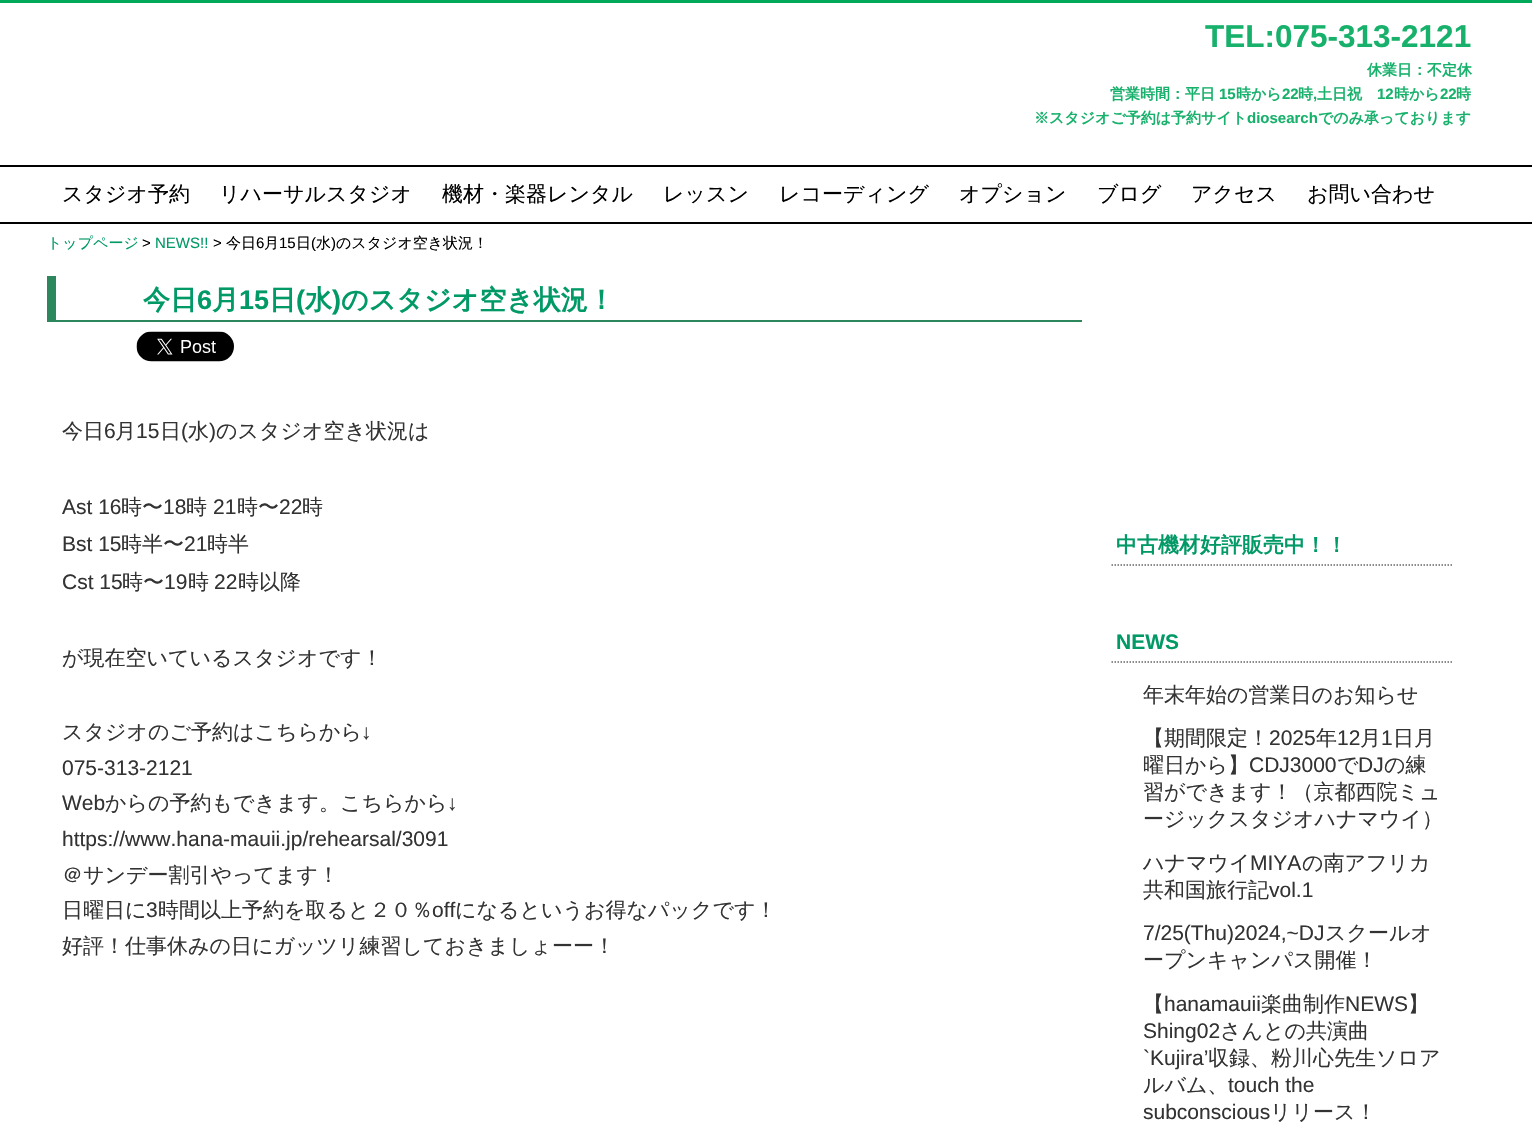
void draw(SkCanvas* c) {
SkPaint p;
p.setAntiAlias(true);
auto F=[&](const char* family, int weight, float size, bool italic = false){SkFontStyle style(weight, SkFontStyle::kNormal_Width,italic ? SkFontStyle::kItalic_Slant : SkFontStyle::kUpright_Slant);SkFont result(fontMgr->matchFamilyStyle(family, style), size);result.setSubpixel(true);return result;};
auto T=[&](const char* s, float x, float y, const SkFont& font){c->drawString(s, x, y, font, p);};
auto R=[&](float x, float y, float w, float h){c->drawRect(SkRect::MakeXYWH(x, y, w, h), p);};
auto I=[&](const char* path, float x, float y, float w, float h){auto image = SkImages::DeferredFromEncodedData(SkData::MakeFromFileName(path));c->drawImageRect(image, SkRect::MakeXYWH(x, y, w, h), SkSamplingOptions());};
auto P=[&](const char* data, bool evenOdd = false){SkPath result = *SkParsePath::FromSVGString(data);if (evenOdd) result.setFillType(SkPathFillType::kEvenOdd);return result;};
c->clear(0xffffffff);
p.setColor(0xff00a959);
R(0,0,1532,3);
auto f1 = F("Liberation Sans",700,31.5);
p.setColor(0xff17b16b);
T("TEL:075-313-2121",1205,47,f1);
auto f2 = F("WenQuanYi Zen Hei",700,15);
T("休業日：不定休",1367,75,f2);
T("営業時間：平日",1110,99,f2);
auto f3 = F("Liberation Sans",700,15);
T("15",1219,99,f3);
T("時から",1236,99,f2);
T("22",1282,99,f3);
T("時",1298,99,f2);
T(",",1313,99,f3);
T("土日祝",1317,99,f2);
T("12",1377,99,f3);
T("時から",1394,99,f2);
T("22",1440,99,f3);
T("時",1456,99,f2);
T("※スタジオご予約は予約サイト",1034,123,f2);
T("diosearch",1247,123,f3);
T("でのみ承っております",1318,123,f2);
p.setColor(0xff000000);
R(0,165,1532,2);
R(0,222,1532,2);
auto f4 = F("WenQuanYi Zen Hei",500,21);
T("スタジオ予約",62,201,f4);
T("リハーサルスタジオ",219,201,f4);
T("機材・楽器レンタル",442,201,f4);
T("レッスン",663,201,f4);
T("レコーディング",779,201,f4);
T("オプション",959,201,f4);
T("ブログ",1097,201,f4);
T("アクセス",1191,201,f4);
T("お問い合わせ",1307,201,f4);
auto f5 = F("WenQuanYi Zen Hei",500,15);
p.setColor(0xff019966);
T("トップページ",47,248,f5);
auto f6 = F("Liberation Sans",400,15);
p.setColor(0xff000000);
T(">",142,248,f6);
p.setColor(0xff019966);
T("NEWS!!",155,248,f6);
p.setColor(0xff000000);
T(">",213,248,f6);
T("今日",226,248,f5);
T("6",256,248,f6);
T("月",264,248,f5);
T("15",279,248,f6);
T("日",296,248,f5);
T("(",311,248,f6);
T("水",316,248,f5);
T(")",331,248,f6);
T("のスタジオ空き状況！",336,248,f5);
p.setColor(0xff2d875d);
R(47,320,1035,2);
R(47,276,9,44);
auto f7 = F("WenQuanYi Zen Hei",700,27);
p.setColor(0xff019966);
T("今日",143,309,f7);
auto f8 = F("Liberation Sans",700,27);
T("6",197,309,f8);
T("月",212,309,f7);
T("15",239,309,f8);
T("日",269,309,f7);
T("(",296,309,f8);
T("水",305,309,f7);
T(")",332,309,f8);
T("のスタジオ空き状況！",341,309,f7);
I("1.png",136,331,98,31);
p.setColor(0xff333333);
T("今日",62,438,f4);
auto f9 = F("Liberation Sans",400,21);
T("6",104,438,f9);
T("月",115,438,f4);
T("15",136,438,f9);
T("日",160,438,f4);
T("(",181,438,f9);
T("水",188,438,f4);
T(")",209,438,f9);
T("のスタジオ空き状況は",216,438,f4);
T("Ast 16",62,514,f9);
T("時〜",121,514,f4);
T("18",163,514,f9);
T("時",186,514,f4);
T("21",213,514,f9);
T("時〜",237,514,f4);
T("22",279,514,f9);
T("時",302,514,f4);
T("Bst 15",62,551,f9);
T("時半〜",121,551,f4);
T("21",184,551,f9);
T("時半",207,551,f4);
T("Cst 15",62,589,f9);
T("時〜",122,589,f4);
T("19",164,589,f9);
T("時",188,589,f4);
T("22",214,589,f9);
T("時以降",238,589,f4);
T("が現在空いているスタジオです！",62,665,f4);
T("スタジオのご予約はこちらから",62,739,f4);
T("↓",361,739,f9);
T("075-313-2121",62,775,f9);
T("Web",62,810,f9);
T("からの予約もできます。こちらから",105,810,f4);
T("↓",447,810,f9);
T("https://www.hana-mauii.jp/rehearsal/3091",62,846,f9);
T("＠サンデー割引やってます！",62,882,f4);
T("日曜日に",62,917,f4);
T("3",146,917,f9);
T("時間以上予約を取ると２０％",158,917,f4);
T("off",432,917,f9);
T("になるというお得なパックです！",455,917,f4);
T("好評！仕事休みの日にガッツリ練習しておきましょーー！",62,953,f4);
p.setStroke(true);
p.setStrokeWidth(1.5);
p.setColor(0xff666666);
p.setPathEffect(SkDashPathEffect::Make({{1.5f,1.5f}}, 0));
c->drawPath(P("M1111.5 565h340.5"),p);
p.setPathEffect(nullptr);
auto f10 = F("WenQuanYi Zen Hei",700,21);
p.setStroke(false);
p.setColor(0xff019966);
T("中古機材好評販売中！！",1116,552,f10);
p.setStroke(true);
p.setColor(0xff666666);
p.setPathEffect(SkDashPathEffect::Make({{1.5f,1.5f}}, 0));
c->drawPath(P("M1111.5 662h340.5"),p);
p.setPathEffect(nullptr);
auto f11 = F("Liberation Sans",700,21);
p.setStroke(false);
p.setColor(0xff019966);
T("NEWS",1116,649,f11);
p.setColor(0xff333333);
T("年末年始の営業日のお知らせ",1143,702,f4);
T("【期間限定！",1143,745,f4);
T("2025",1269,745,f9);
T("年",1316,745,f4);
T("12",1337,745,f9);
T("月",1360,745,f4);
T("1",1381,745,f9);
T("日月",1393,745,f4);
T("曜日から】",1143,772,f4);
T("CDJ3000",1249,772,f9);
T("で",1337,772,f4);
T("DJ",1358,772,f9);
T("の練",1384,772,f4);
T("習ができます！（京都西院ミュ",1143,799,f4);
T("ージックスタジオハナマウイ）",1143,826,f4);
T("ハナマウイ",1143,870,f4);
T("MIYA",1250,870,f9);
T("の南アフリカ",1302,870,f4);
T("共和国旅行記",1143,897,f4);
T("vol.1",1269,897,f9);
T("7/25(Thu)2024,~DJ",1143,940,f9);
T("スクールオ",1325,940,f4);
T("ープンキャンパス開催！",1143,967,f4);
T("【",1143,1011,f4);
T("hanamauii",1164,1011,f9);
T("楽曲制作",1261,1011,f4);
T("NEWS",1345,1011,f9);
T("】",1408,1011,f4);
T("Shing02",1143,1038,f9);
T("さんとの共演曲",1220,1038,f4);
T("`Kujira’",1143,1065,f9);
T("収録、粉川心先生ソロア",1208,1065,f4);
T("ルバム、",1143,1092,f4);
T("touch the",1228,1092,f9);
T("subconscious",1143,1119,f9);
T("リリース！",1270,1119,f4);
}
